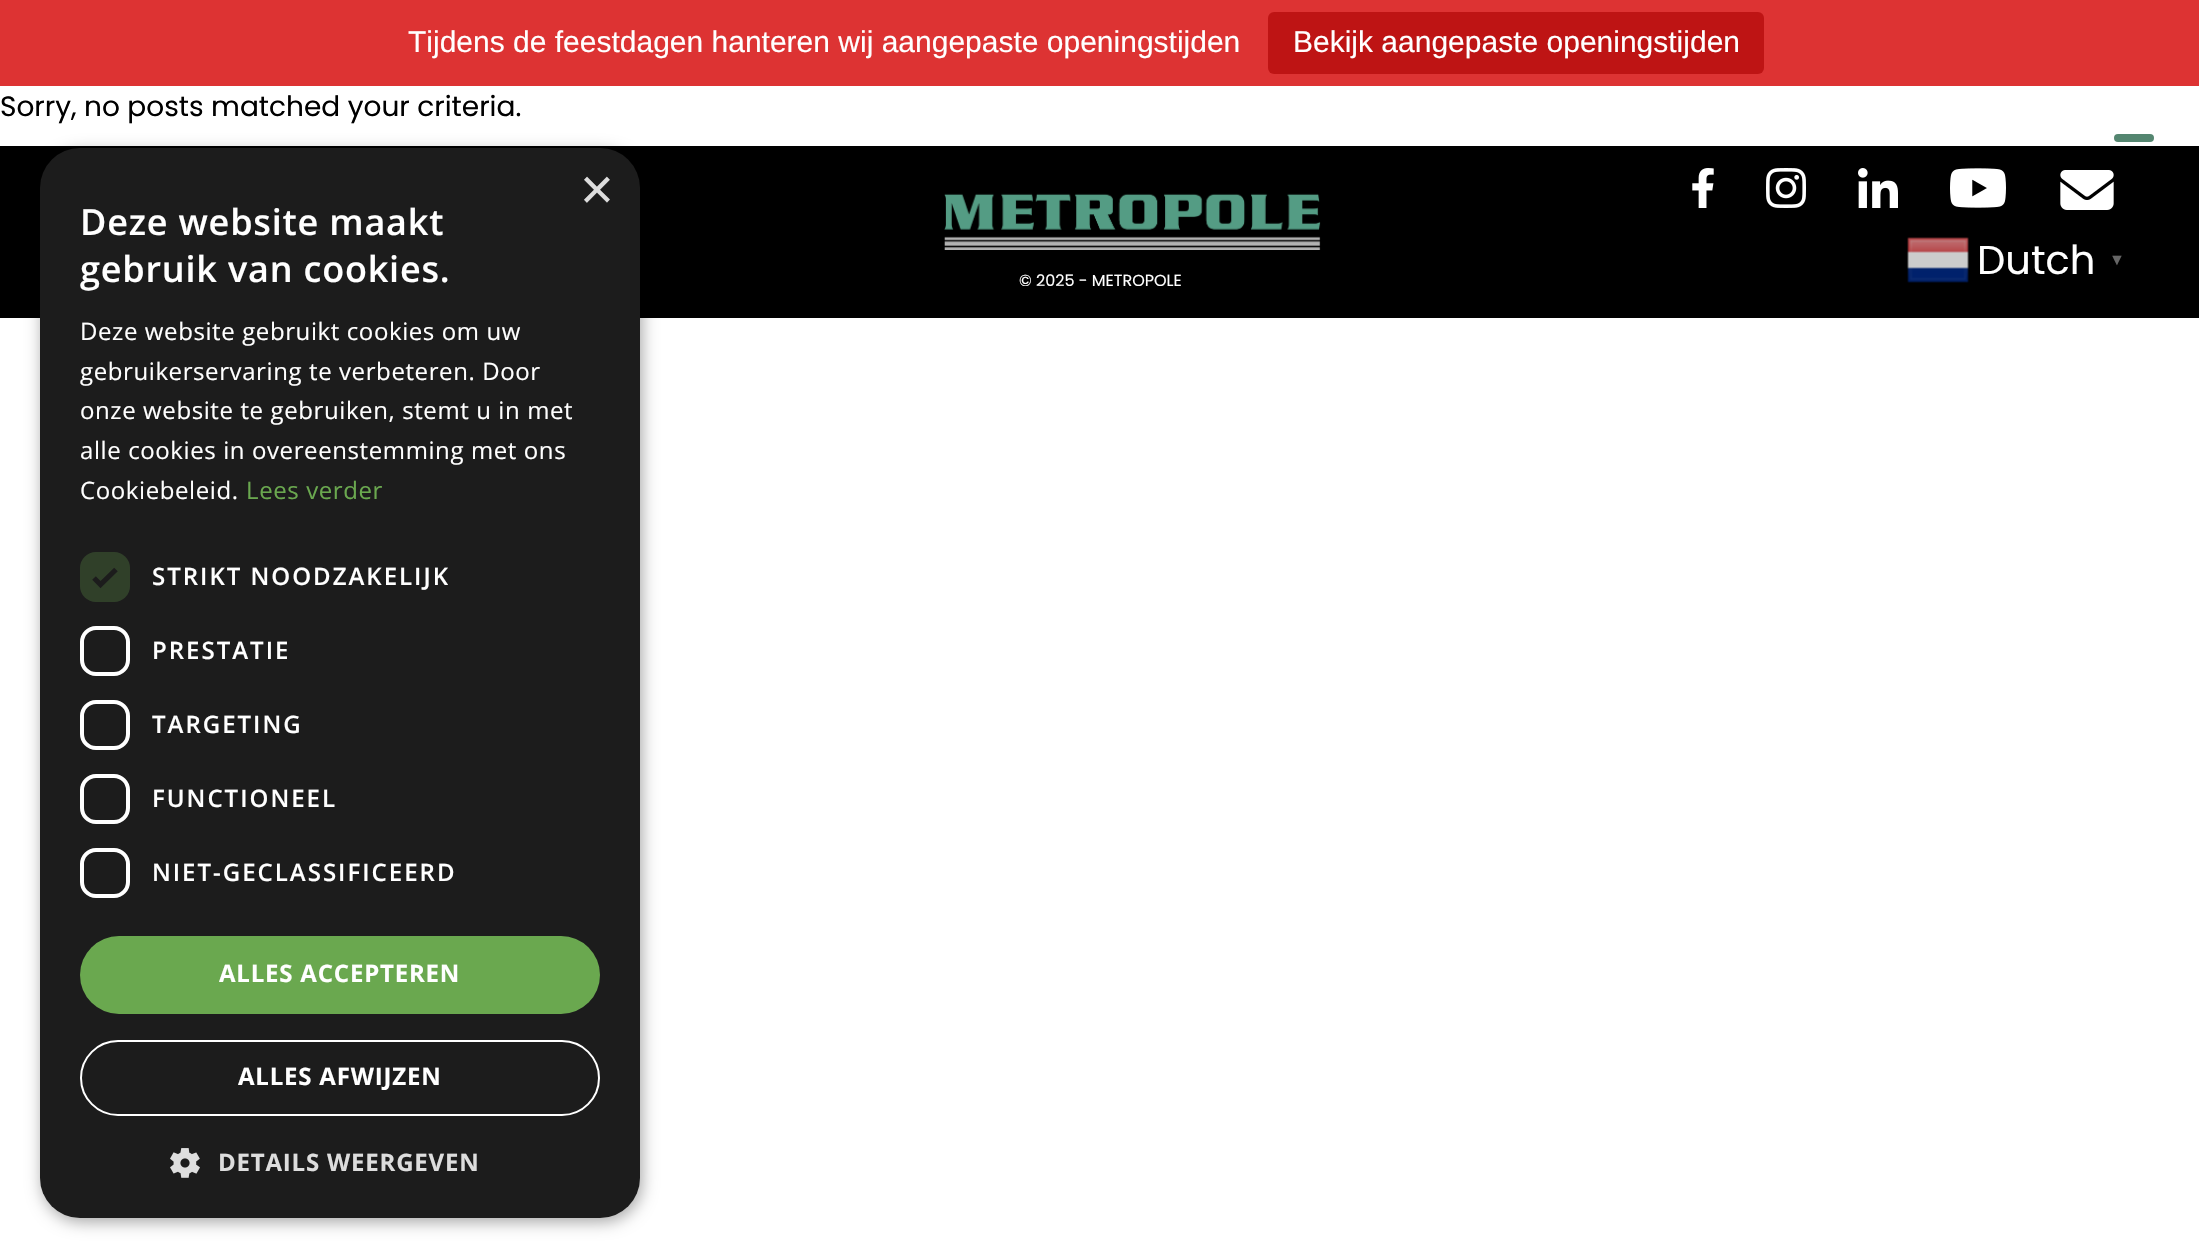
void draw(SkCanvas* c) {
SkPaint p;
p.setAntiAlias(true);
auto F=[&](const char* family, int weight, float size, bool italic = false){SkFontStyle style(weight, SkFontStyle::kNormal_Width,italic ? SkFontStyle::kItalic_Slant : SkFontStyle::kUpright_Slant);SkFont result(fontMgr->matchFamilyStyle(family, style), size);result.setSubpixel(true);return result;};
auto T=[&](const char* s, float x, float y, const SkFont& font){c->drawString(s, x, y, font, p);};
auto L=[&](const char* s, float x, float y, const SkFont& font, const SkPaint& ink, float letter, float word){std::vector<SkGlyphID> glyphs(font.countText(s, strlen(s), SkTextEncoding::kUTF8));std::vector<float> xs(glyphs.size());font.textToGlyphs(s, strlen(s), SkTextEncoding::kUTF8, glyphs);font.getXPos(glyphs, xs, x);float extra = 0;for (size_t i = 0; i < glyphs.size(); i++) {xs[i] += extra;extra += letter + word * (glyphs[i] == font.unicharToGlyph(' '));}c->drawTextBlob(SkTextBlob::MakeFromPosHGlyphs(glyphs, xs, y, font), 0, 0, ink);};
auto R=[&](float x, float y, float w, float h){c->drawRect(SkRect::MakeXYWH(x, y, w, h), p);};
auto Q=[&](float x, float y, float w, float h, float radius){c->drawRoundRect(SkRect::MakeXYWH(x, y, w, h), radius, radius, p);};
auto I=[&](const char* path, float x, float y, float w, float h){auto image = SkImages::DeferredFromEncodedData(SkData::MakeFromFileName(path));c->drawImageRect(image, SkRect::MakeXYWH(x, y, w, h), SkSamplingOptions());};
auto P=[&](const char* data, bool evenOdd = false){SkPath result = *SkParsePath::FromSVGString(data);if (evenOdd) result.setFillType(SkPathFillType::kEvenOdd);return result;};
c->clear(0xffffffff);
p.setColor(0xffdd3333);
R(0,0,2199,86);
auto f1 = F("Liberation Sans",400,30);
p.setColor(0xffffffff);
T("Tijdens de feestdagen hanteren wij aangepaste openingstijden",408,52,f1);
p.setColor(0xffbe1414);
Q(1268,12,496,62,6);
p.setColor(0xffffffff);
T("Bekijk aangepaste openingstijden",1293,52,f1);
auto f2 = F("Poppins",400,28);
p.setColor(0xff000000);
T("Sorry, no posts matched your criteria.",0,116,f2);
R(0,146,2199,172);
p.setColor(0x59000000);
p.setMaskFilter(SkMaskFilter::MakeBlur(kNormal_SkBlurStyle, 8));
c->drawRoundRect(SkRect::MakeXYWH(42,152,600,1070),40,40,p);
p.setMaskFilter(nullptr);
p.setColor(0xff1c1c1c);
Q(40,148,600,1070,40);
auto f3 = F("Liberation Sans",400,58);
p.setColor(0xffdddddd);
T("×",580,209,f3);
auto f4 = F("Open Sans",600,36);
p.setColor(0xffffffff);
L("Deze website maakt",80,235,f4,p,.8,0);
L("gebruik van cookies.",80,282,f4,p,.8,0);
auto f5 = F("Open Sans",400,24);
L("Deze website gebruikt cookies om uw",80,340,f5,p,.6,0);
L("gebruikerservaring te verbeteren. Door",80,380,f5,p,.6,0);
L("onze website te gebruiken, stemt u in met",80,419,f5,p,.6,0);
L("alle cookies in overeenstemming met ons",80,459,f5,p,.6,0);
L("Cookiebeleid.",80,499,f5,p,.6,0);
p.setColor(0xff6aa84f);
L("Lees verder",246,499,f5,p,.6,0);
p.setColor(0xff304029);
Q(80,552,50,50,16);
p.setStroke(true);
p.setStrokeWidth(5.2);
p.setColor(0xff1c1c1c);
c->drawPath(P("M94 578l6.5 6.5l15.5-15"),p);
auto f6 = F("Open Sans",600,24);
p.setStroke(false);
p.setColor(0xffffffff);
L("STRIKT NOODZAKELIJK",152,585,f6,p,2,0);
p.setStroke(true);
p.setStrokeWidth(4);
c->drawRoundRect(SkRect::MakeXYWH(82,628,46,46),14,14,p);
p.setStroke(false);
L("PRESTATIE",152,659,f6,p,2,0);
p.setStroke(true);
c->drawRoundRect(SkRect::MakeXYWH(82,702,46,46),14,14,p);
p.setStroke(false);
L("TARGETING",152,733,f6,p,2,0);
p.setStroke(true);
c->drawRoundRect(SkRect::MakeXYWH(82,776,46,46),14,14,p);
p.setStroke(false);
L("FUNCTIONEEL",152,807,f6,p,2,0);
p.setStroke(true);
c->drawRoundRect(SkRect::MakeXYWH(82,850,46,46),14,14,p);
p.setStroke(false);
L("NIET-GECLASSIFICEERD",152,881,f6,p,2,0);
p.setColor(0xff6aa84f);
Q(80,936,520,78,39);
auto f7 = F("Open Sans",700,24);
p.setColor(0xffffffff);
L("ALLES ACCEPTEREN",219,982,f7,p,.8,0);
p.setStroke(true);
p.setStrokeWidth(2);
c->drawRoundRect(SkRect::MakeXYWH(81,1041,518,74),37,37,p);
p.setStroke(false);
L("ALLES AFWIJZEN",238,1085,f7,p,.8,0);
I("1.png",170,1148,30,30);
p.setColor(0xffdddddd);
L("DETAILS WEERGEVEN",218,1171,f7,p,.8,0);
I("2.png",1692,168,22,40);
I("3.png",1766,168,40,40);
I("4.png",1858,168,40,40);
I("5.png",1950,168,56,40);
p.setColor(0xff548670);
Q(2114,134,40,8,4);
I("6.png",2060,170,54,40);
I("7.png",1907,237,62,46);
auto f8 = F("Poppins",400,40);
p.setColor(0xffffffff);
T("Dutch",1977,274,f8);
auto f9 = F("Liberation Sans",700,16);
p.setColor(0xff666666);
T("▼",2109,265,f9);
I("8.png",944,193,377,57);
auto f10 = F("Poppins",400,16);
p.setColor(0xffffffff);
T("© 2025 - METROPOLE",1019,286,f10);
}
